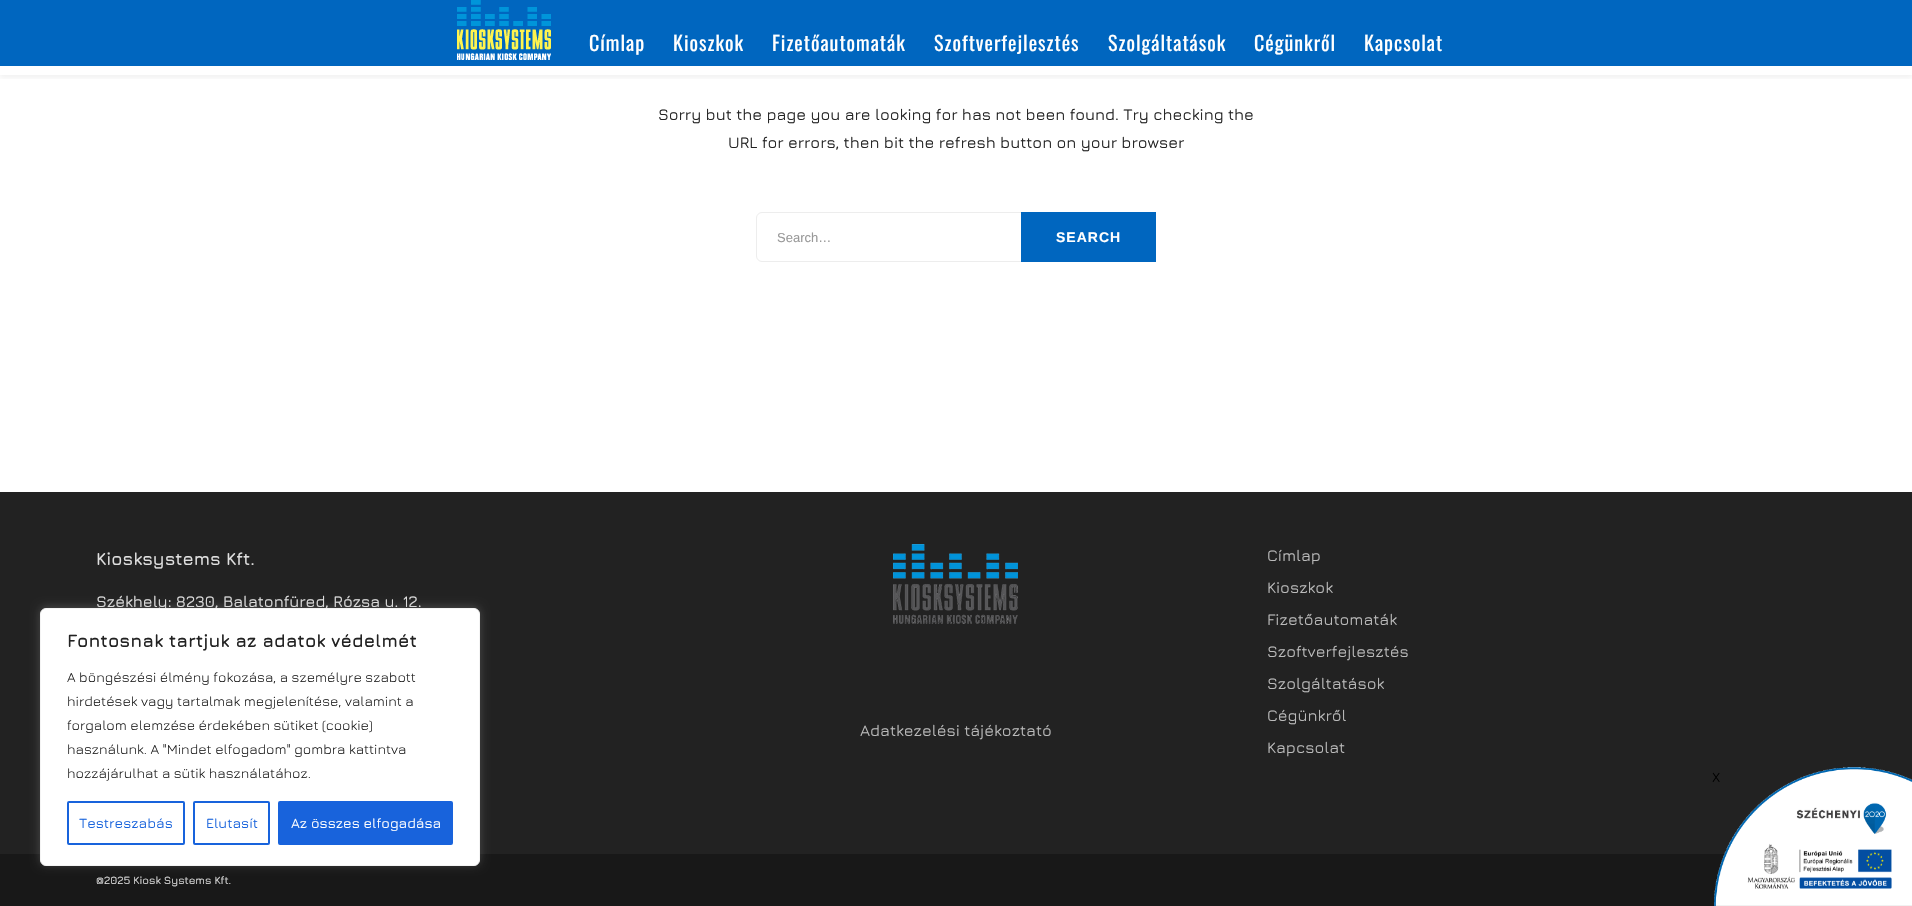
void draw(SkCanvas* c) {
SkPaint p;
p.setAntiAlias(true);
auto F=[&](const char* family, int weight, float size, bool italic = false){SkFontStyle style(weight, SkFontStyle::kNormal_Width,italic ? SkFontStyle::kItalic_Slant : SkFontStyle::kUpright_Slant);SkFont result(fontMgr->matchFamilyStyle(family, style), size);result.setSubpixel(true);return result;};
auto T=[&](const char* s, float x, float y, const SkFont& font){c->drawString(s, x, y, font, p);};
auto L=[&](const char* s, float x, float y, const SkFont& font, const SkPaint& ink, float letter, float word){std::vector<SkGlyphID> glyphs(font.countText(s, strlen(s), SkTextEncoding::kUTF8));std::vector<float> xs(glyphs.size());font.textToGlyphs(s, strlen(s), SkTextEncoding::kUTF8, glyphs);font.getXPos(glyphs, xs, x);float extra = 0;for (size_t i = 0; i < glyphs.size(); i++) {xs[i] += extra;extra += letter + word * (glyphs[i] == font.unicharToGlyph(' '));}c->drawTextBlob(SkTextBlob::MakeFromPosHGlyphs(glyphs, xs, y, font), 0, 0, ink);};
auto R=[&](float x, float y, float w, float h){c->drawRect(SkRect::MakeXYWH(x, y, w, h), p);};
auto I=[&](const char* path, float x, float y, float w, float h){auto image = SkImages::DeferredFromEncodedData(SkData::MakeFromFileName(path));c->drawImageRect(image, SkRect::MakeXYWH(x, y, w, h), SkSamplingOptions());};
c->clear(0xffffffff);
c->save();
c->clipRect(SkRect::MakeXYWH(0,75,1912,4));
p.setColor(0x0d000000);
p.setMaskFilter(SkMaskFilter::MakeBlur(kNormal_SkBlurStyle, 2.5));
c->drawRect(SkRect::MakeXYWH(0,3,1912,75),p);
p.setMaskFilter(nullptr);
c->restore();
p.setColor(0xff0066bf);
R(0,0,1912,66);
I("1.png",457,0,94,60);
auto f1 = F("Oswald",400,20);
p.setColor(0xffffffff);
L("Címlap",589,51,f1,p,1,0);
L("Kioszkok",673,51,f1,p,1,0);
L("Fizetőautomaták",772,51,f1,p,1,0);
L("Szoftverfejlesztés",934,51,f1,p,1,0);
L("Szolgáltatások",1108,51,f1,p,1,0);
L("Cégünkről",1254,51,f1,p,1,0);
L("Kapcsolat",1364,51,f1,p,1,0);
auto f2 = F("Jura",500,16);
p.setColor(0xff222222);
T("Sorry but the page you are looking for has not been found. Try checking the",658,120,f2);
T("URL for errors, then bit the refresh button on your browser",728,148,f2);
p.setStroke(true);
p.setStrokeWidth(1);
p.setColor(0xffededed);
c->drawRoundRect(SkRect::MakeXYWH(756.5,212.5,399,49),5.5,5.5,p);
auto f3 = F("Liberation Sans",400,13);
p.setStroke(false);
p.setColor(0xff999999);
T("Search…",777,242,f3);
p.setColor(0xff0066bf);
R(1021,212,135,50);
auto f4 = F("Liberation Sans",700,14);
p.setColor(0xffffffff);
L("SEARCH",1056,242,f4,p,1,0);
p.setColor(0xff222222);
R(0,492,1912,362);
auto f5 = F("Jura",600,18);
p.setColor(0xffe0e0e0);
T("Kiosksystems Kft.",96,565,f5);
T("Székhely: 8230, Balatonfüred, Rózsa u. 12.",96,607,f2);
p.setColor(0xffbbbbbb);
T("Címlap",1267,561,f2);
T("Kioszkok",1267,593,f2);
T("Fizetőautomaták",1267,625,f2);
T("Szoftverfejlesztés",1267,657,f2);
T("Szolgáltatások",1267,689,f2);
T("Cégünkről",1267,721,f2);
T("Kapcsolat",1267,753,f2);
p.setColor(0xff181818);
R(0,854,1912,52);
I("2.png",1714,767,198,139);
auto f6 = F("Jura",500,14);
p.setColor(0xff000000);
T("X",1712,782,f6);
I("3.png",893,544,125,80);
p.setColor(0xffbbbbbb);
T("Adatkezelési tájékoztató",860,736,f2);
auto f7 = F("Jura",500,11);
p.setColor(0xffe0e0e0);
T("@2025 Kiosk Systems Kft.",96,884,f7);
p.setColor(0x4dacabab);
p.setMaskFilter(SkMaskFilter::MakeBlur(kNormal_SkBlurStyle, 5));
c->drawRoundRect(SkRect::MakeXYWH(40,607,440,258),6,6,p);
p.setMaskFilter(nullptr);
p.setColor(0xffffffff);
c->drawRoundRect(SkRect::MakeXYWH(40.5,608.5,439,257),5.5,5.5,p);
p.setStroke(true);
p.setColor(0xfff4f4f4);
c->drawRoundRect(SkRect::MakeXYWH(40.5,608.5,439,257),5.5,5.5,p);
auto f8 = F("Jura",700,18);
p.setStroke(false);
p.setColor(0xff222222);
T("Fontosnak tartjuk az adatok védelmét",67,647,f8);
auto f9 = F("Jura",400,14);
T("A böngészési élmény fokozása, a személyre szabott",67,682,f9);
T("hirdetések vagy tartalmak megjelenítése, valamint a",67,706,f9);
T("forgalom elemzése érdekében sütiket (cookie)",67,730,f9);
T("használunk. A \"Mindet elfogadom\" gombra kattintva",67,754,f9);
T("hozzájárulhat a sütik használatához.",67,778,f9);
p.setStroke(true);
p.setStrokeWidth(2);
p.setColor(0xff1863dc);
c->drawRoundRect(SkRect::MakeXYWH(68,802,116,42),1,1,p);
p.setStroke(false);
T("Testreszabás",79,828,f6);
p.setStroke(true);
c->drawRoundRect(SkRect::MakeXYWH(194,802,75,42),1,1,p);
p.setStroke(false);
T("Elutasít",206,828,f6);
c->drawRoundRect(SkRect::MakeXYWH(279,802,173,42),1,1,p);
p.setStroke(true);
c->drawRoundRect(SkRect::MakeXYWH(279,802,173,42),1,1,p);
p.setStroke(false);
p.setColor(0xffffffff);
T("Az összes elfogadása",291,828,f6);
}
